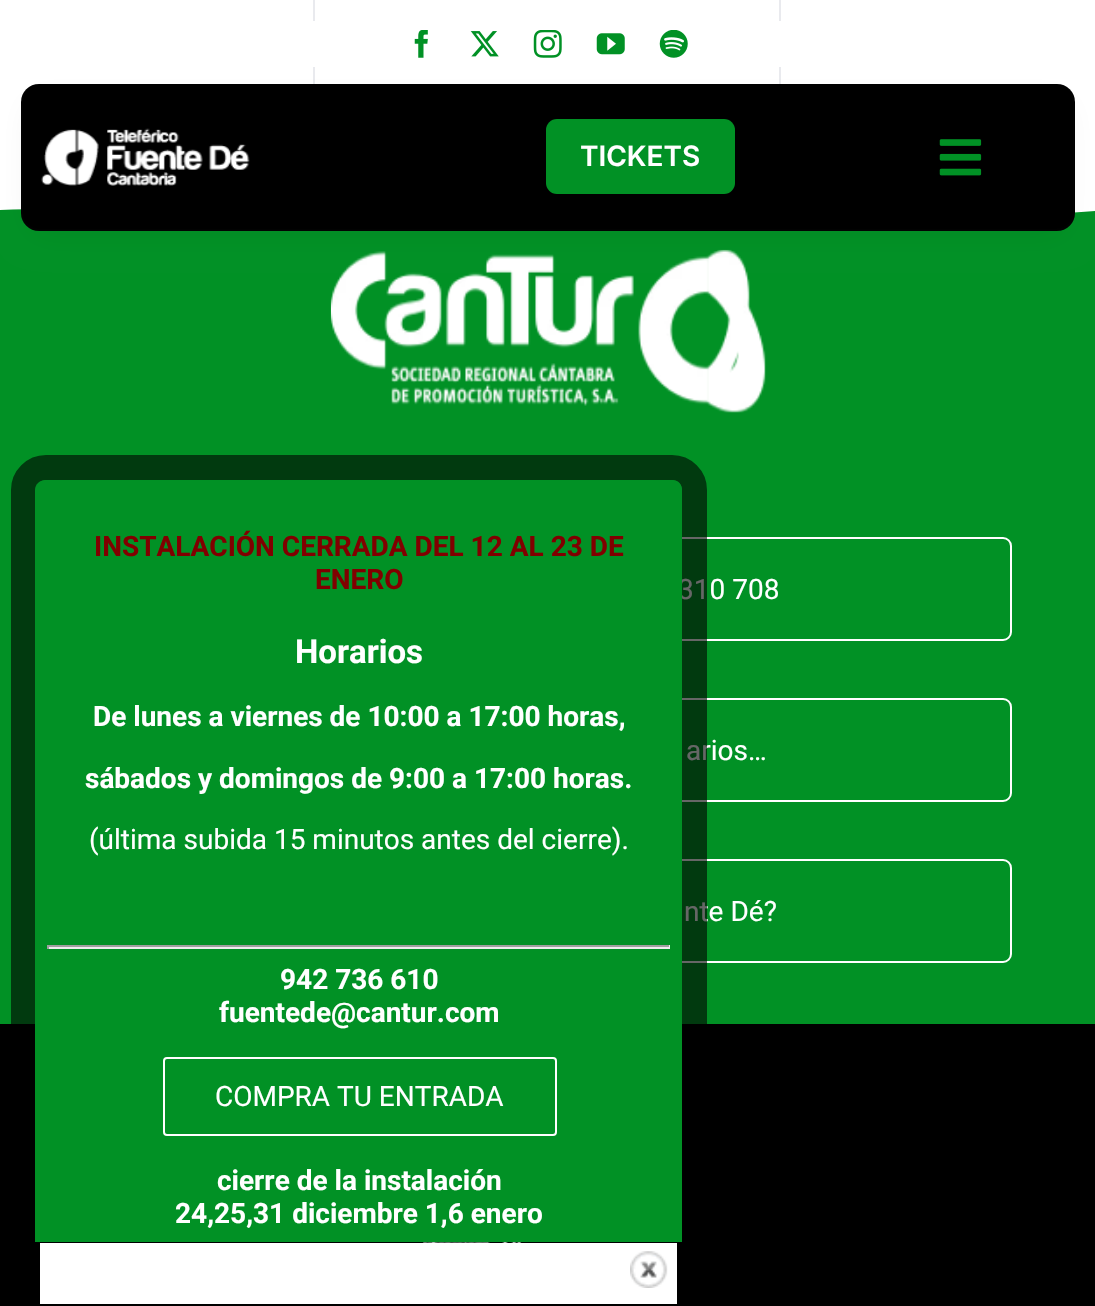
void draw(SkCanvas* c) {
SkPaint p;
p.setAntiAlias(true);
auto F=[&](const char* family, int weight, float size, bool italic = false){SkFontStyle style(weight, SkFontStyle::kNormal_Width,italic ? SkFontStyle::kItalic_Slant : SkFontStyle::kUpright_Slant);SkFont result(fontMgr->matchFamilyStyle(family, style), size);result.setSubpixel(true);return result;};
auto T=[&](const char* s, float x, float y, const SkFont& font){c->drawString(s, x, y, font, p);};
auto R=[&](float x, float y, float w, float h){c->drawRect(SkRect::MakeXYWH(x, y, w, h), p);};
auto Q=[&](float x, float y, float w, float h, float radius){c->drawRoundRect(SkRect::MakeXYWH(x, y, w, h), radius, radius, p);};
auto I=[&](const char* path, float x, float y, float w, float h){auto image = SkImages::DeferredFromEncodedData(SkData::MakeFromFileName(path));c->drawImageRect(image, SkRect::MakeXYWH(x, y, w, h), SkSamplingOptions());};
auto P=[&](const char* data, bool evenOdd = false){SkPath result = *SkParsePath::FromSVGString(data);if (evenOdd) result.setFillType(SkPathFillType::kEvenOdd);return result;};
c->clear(0xffffffff);
p.setColor(0xff019125);
R(0,229,1095,795);
p.setStroke(true);
p.setStrokeWidth(2);
p.setColor(0xffffffff);
c->drawRoundRect(SkRect::MakeXYWH(85,538,926,102),8,8,p);
auto f1 = F("Roboto",400,28);
p.setStroke(false);
T("310 708",678,599,f1);
p.setStroke(true);
c->drawRoundRect(SkRect::MakeXYWH(85,699,926,102),8,8,p);
p.setStroke(false);
T("arios…",686,760,f1);
p.setStroke(true);
c->drawRoundRect(SkRect::MakeXYWH(85,860,926,102),8,8,p);
p.setStroke(false);
T("nte Dé?",684,921,f1);
p.setColor(0xff000000);
R(0,1024,1095,282);
I("10.png",422,1242,100,1);
p.setStroke(true);
p.setStrokeWidth(25);
p.setColor(0x99000000);
c->drawRoundRect(SkRect::MakeXYWH(23.5,467.5,671,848),22.5,22.5,p);
p.setStroke(false);
p.setColor(0xff019125);
c->drawPath(P("M46 480h626c6 0 10 4 10 10v752h-647v-752c0-6 5-10 11-10z"),p);
p.setColor(0xffffffff);
R(40,1243,637,61);
auto f2 = F("Roboto",700,28);
p.setColor(0xff800000);
T("INSTALACIÓN CERRADA DEL 12 AL 23 DE",94,556,f2);
T("ENERO",315,589,f2);
auto f3 = F("Roboto",700,33);
p.setColor(0xffffffff);
T("Horarios",295,663,f3);
T("De lunes a viernes de 10:00 a 17:00 horas,",93,726,f2);
T("sábados y domingos de 9:00 a 17:00 horas.",85,788,f2);
T("(última subida 15 minutos antes del cierre).",89,849,f1);
p.setColor(0xff9f9f9f);
R(47,945,623,2);
p.setColor(0xffeeeeee);
R(669,945,1,4);
R(47,947,623,2);
p.setColor(0xff9f9f9f);
R(47,945,2,4);
p.setColor(0xffffffff);
T("942 736 610",280,989,f2);
T("fuentede@cantur.com",219,1022,f2);
p.setStroke(true);
p.setStrokeWidth(2);
c->drawRoundRect(SkRect::MakeXYWH(164,1058,392,77),3,3,p);
p.setStroke(false);
T("COMPRA TU ENTRADA",215,1106,f1);
T("cierre de la instalación",217,1190,f2);
T("24,25,31 diciembre 1,6 enero",175,1223,f2);
I("1.png",630,1251,38,37);
p.setStroke(true);
p.setColor(0xffe9eaee);
c->drawRect(SkRect::MakeXYWH(314,-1,466,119),p);
p.setStroke(false);
p.setColor(0xffffffff);
R(313,21,468,46);
I("2.png",414,30,14,28);
I("3.png",470,31,29,26);
I("4.png",533,30,29,28);
I("5.png",596,33,29,22);
I("6.png",659,30,29,28);
c->save();
c->clipRect(SkRect::MakeXYWH(0,203,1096,26));
p.setColor(0xff019125);
c->drawPath(P("M0 230h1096v-19c-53 4-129 10-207 10c-138 0-171-18-274-18c-95 0-144 20-262 20c-118 1-172-14-300-14c-18 0-36 0-53 1z"),p);
c->restore();
I("9.png",330,249,436,164);
p.setColor(0x121f2123);
p.setMaskFilter(SkMaskFilter::MakeBlur(kNormal_SkBlurStyle, 17.5));
c->drawRoundRect(SkRect::MakeXYWH(32,105,1032,126),7,7,p);
p.setMaskFilter(nullptr);
p.setColor(0xff000000);
Q(21,84,1054,147,18);
p.setColor(0x0d1f2123);
c->drawPath(P("M38 84h1019c10 0 17 8 17 18v112c0 9-7 17-17 17h-1019c-9 0-17-8-17-17v-112c0-10 8-18 17-18zm0 0h1019c9 0 16 8 16 18v112c0 8-7 15-16 15h-1019c-8 0-15-7-15-15v-112c0-10 7-18 15-18z",true),p);
I("7.png",41,128,209,58);
p.setColor(0xff019125);
Q(546,119,189,75,11);
auto f4 = F("Inter",600,28);
p.setColor(0xffffffff);
T("TICKETS",580,166,f4);
I("8.png",939,139,43,37);
}
